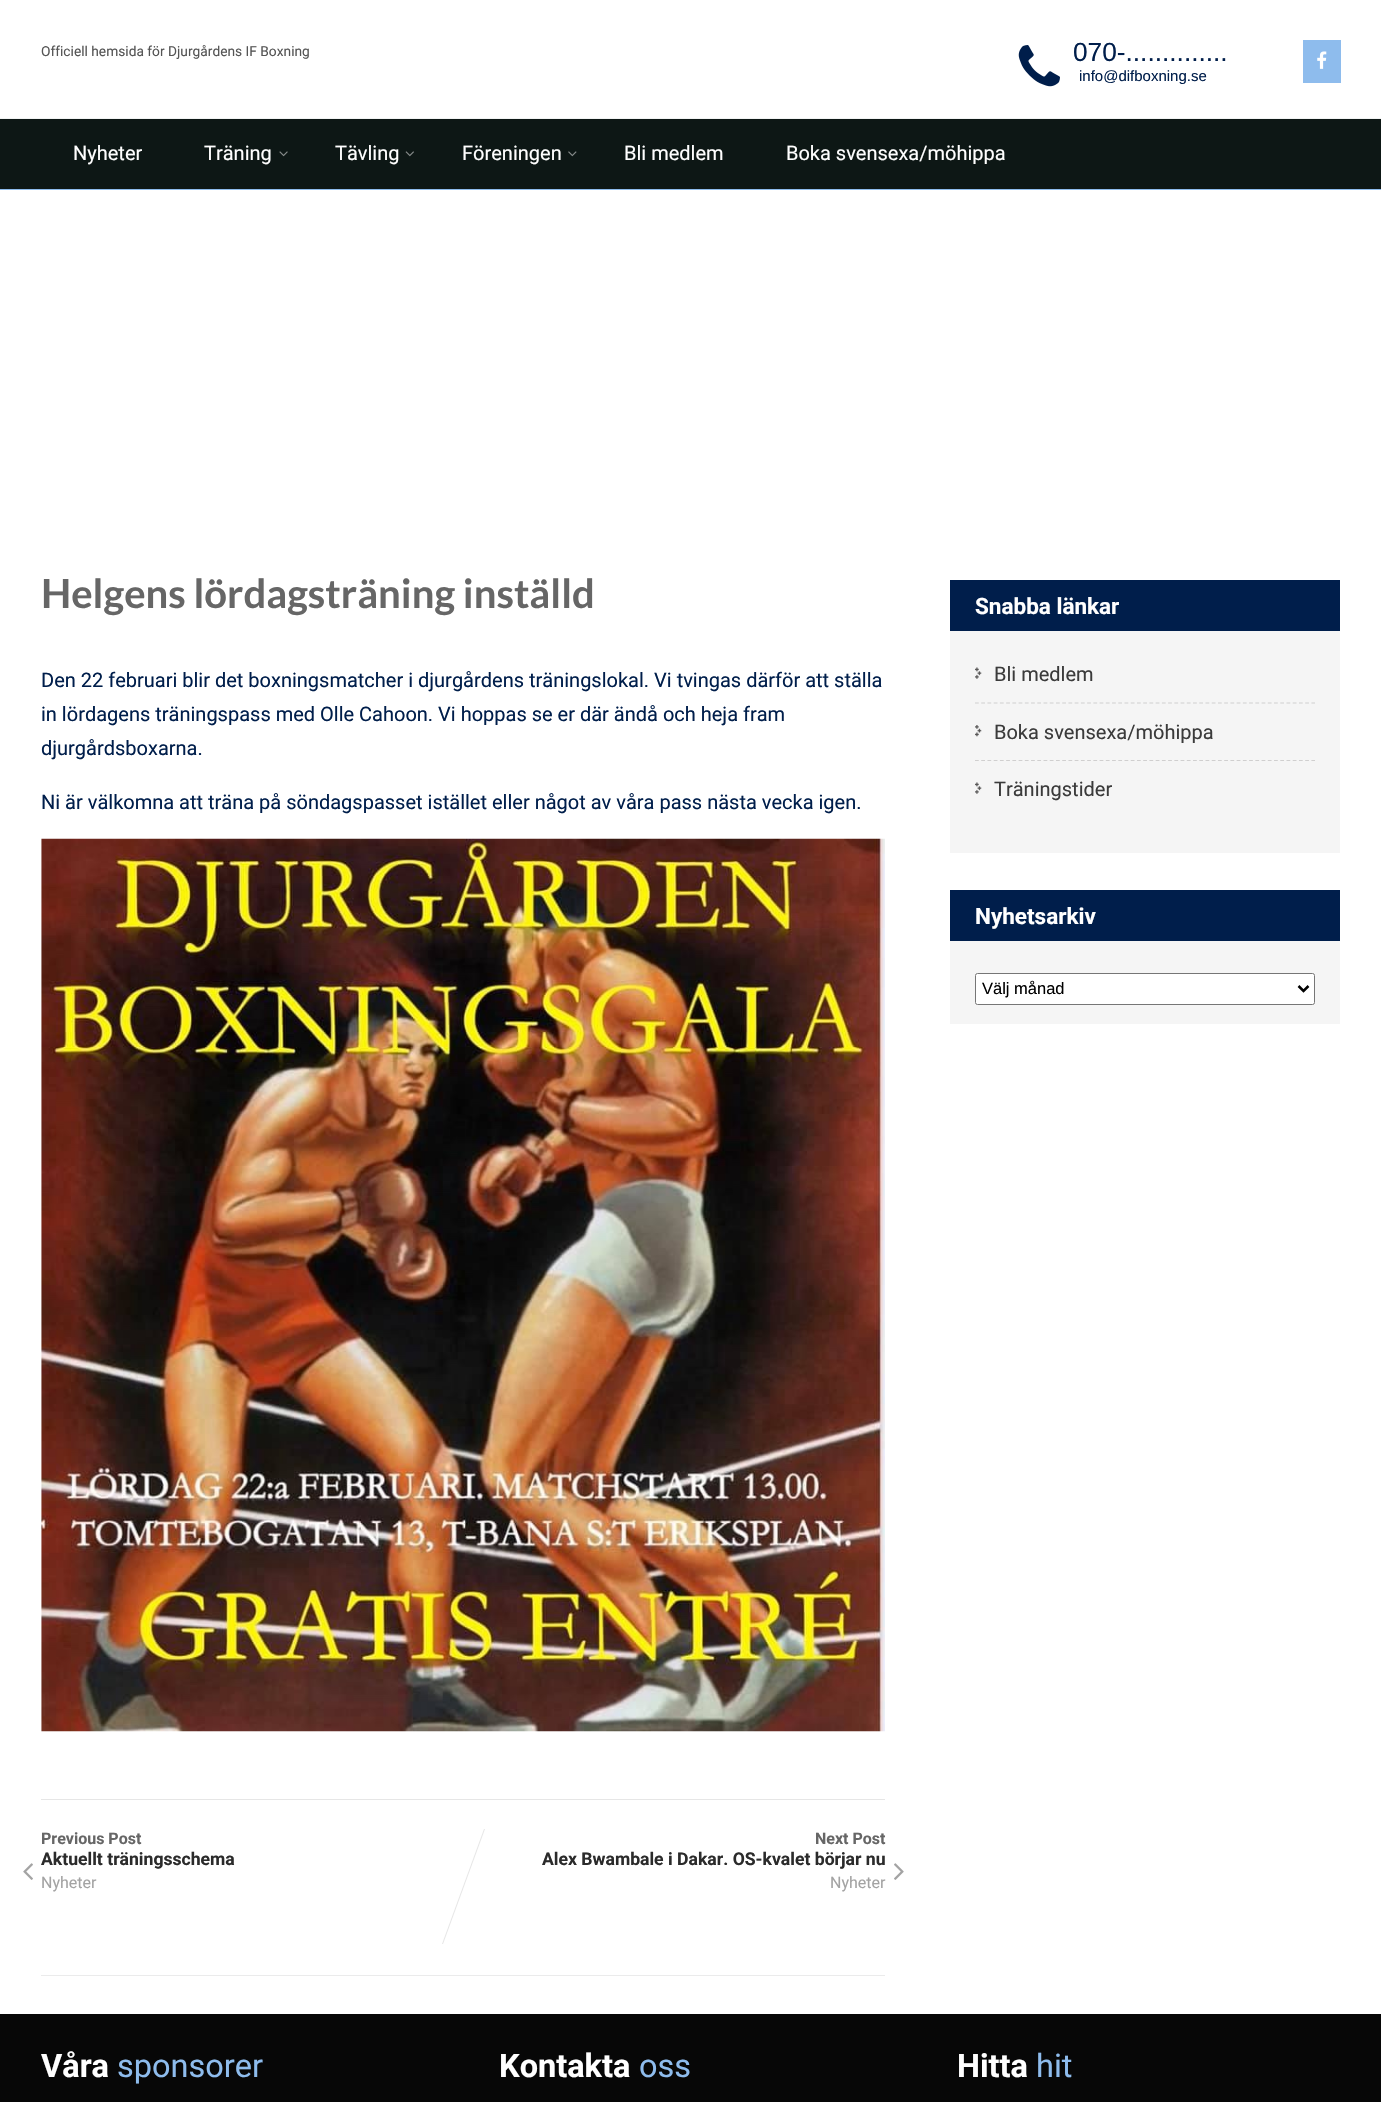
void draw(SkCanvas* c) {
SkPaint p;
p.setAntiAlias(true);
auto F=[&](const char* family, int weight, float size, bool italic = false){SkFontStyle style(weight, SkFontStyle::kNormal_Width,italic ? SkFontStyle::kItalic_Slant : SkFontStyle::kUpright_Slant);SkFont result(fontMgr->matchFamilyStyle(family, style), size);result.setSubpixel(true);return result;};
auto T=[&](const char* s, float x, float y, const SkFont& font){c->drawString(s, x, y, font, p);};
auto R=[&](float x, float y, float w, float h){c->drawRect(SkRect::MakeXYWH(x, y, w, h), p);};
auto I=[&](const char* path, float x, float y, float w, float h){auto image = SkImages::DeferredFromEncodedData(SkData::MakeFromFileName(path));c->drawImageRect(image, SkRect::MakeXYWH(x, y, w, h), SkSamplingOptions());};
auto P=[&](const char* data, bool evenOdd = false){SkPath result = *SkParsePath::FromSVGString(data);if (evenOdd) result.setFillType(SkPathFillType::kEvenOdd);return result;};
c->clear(0xffffffff);
auto f1 = F("Roboto",400,13.75);
p.setColor(0xff555555);
T("Officiell hemsida för Djurgårdens IF Boxning",41,56,f1);
I("1.png",1018,45,42,42);
auto f2 = F("Arimo",400,26.25);
p.setColor(0xff001e4b);
T("070-..............",1073,61,f2);
auto f3 = F("Arimo",400,15);
T("info@difboxning.se",1079,81,f3);
p.setColor(0xff8ebced);
R(1303,40,38,43);
I("2.png",1317,51,10,18);
p.setColor(0xff0d1715);
R(0,119,1381,70);
p.setColor(0xfff1f3f3);
R(0,118,1381,1);
p.setColor(0xff8ebced);
R(0,189,1381,1);
auto f4 = F("Roboto",400,20);
p.setColor(0xffffffff);
T("Nyheter",73,160,f4);
T("Träning",204,160,f4);
I("3.png",279,151,9,6);
T("Tävling",335,160,f4);
I("4.png",405,151,9,6);
T("Föreningen",462,160,f4);
I("5.png",568,151,9,6);
T("Bli medlem",624,160,f4);
T("Boka svensexa/möhippa",786,160,f4);
auto f5 = F("Lato",700,40);
p.setColor(0xff666666);
T("Helgens lördagsträning inställd",41,608,f5);
p.setColor(0xff001e4b);
T("Den 22 februari blir det boxningsmatcher i djurgårdens träningslokal. Vi tvingas därför att ställa",41,687,f4);
T("in lördagens träningspass med Olle Cahoon. Vi hoppas se er där ändå och heja fram",41,721,f4);
T("djurgårdsboxarna.",41,755,f4);
T("Ni är välkomna att träna på söndagspasset istället eller något av våra pass nästa vecka igen.",41,809,f4);
I("6.png",41,838,844,894);
p.setColor(0xffe6e6e6);
R(41,1799,844,1);
p.setColor(0xffebebeb);
R(41,1975,844,1);
auto f6 = F("Roboto",700,16);
p.setColor(0xff666666);
T("Previous Post",41,1844,f6);
auto f7 = F("Roboto",700,17.6);
p.setColor(0xff2b2b2b);
T("Aktuellt träningsschema",41,1865,f7);
I("7.png",23,1863,10,17);
auto f8 = F("Roboto",400,16);
p.setColor(0xffa3a3a3);
T("Nyheter",41,1888,f8);
p.setColor(0xffe6e6e6);
c->drawPath(P("M484 1829h1l-42 115h-1z"),p);
p.setColor(0xff666666);
T("Next Post",815,1844,f6);
p.setColor(0xff2b2b2b);
T("Alex Bwambale i Dakar. OS-kvalet börjar nu",542,1865,f7);
I("8.png",894,1863,10,17);
p.setColor(0xffa3a3a3);
T("Nyheter",830,1888,f8);
p.setColor(0xfff5f5f5);
R(950,631,390,222);
p.setColor(0xff001e4b);
R(950,580,390,51);
auto f9 = F("Roboto",700,22.5);
p.setColor(0xffffffff);
T("Snabba länkar",975,614,f9);
I("9.png",975,667,7,12);
p.setStroke(true);
p.setStrokeWidth(1.2);
p.setColor(0xffd0cfcf);
p.setPathEffect(SkDashPathEffect::Make({{3.75f,2.48f}}, 0));
c->drawPath(P("M975 703h340"),p);
p.setPathEffect(nullptr);
p.setStroke(false);
p.setColor(0xff3b3b3b);
T("Bli medlem",994,681,f4);
I("10.png",975,725,7,12);
p.setStroke(true);
p.setColor(0xffd0cfcf);
p.setPathEffect(SkDashPathEffect::Make({{3.75f,2.48f}}, 0));
c->drawPath(P("M975 760.5h340"),p);
p.setPathEffect(nullptr);
p.setStroke(false);
p.setColor(0xff3b3b3b);
T("Boka svensexa/möhippa",994,739,f4);
I("9.png",975,782,7,12);
T("Träningstider",994,796,f4);
p.setColor(0xfff5f5f5);
R(950,941,390,83);
p.setColor(0xff001e4b);
R(950,890,390,51);
p.setColor(0xffffffff);
T("Nyhetsarkiv",975,924,f9);
c->drawRoundRect(SkRect::MakeXYWH(975.5,973.5,339,31),2,2,p);
p.setStroke(true);
p.setStrokeWidth(1);
p.setColor(0xff767676);
c->drawRoundRect(SkRect::MakeXYWH(975.5,973.5,339,31),2,2,p);
p.setStrokeWidth(2.5);
p.setColor(0xff000000);
c->drawPath(P("M1298.5 986l5 5l5-5"),p);
auto f10 = F("Liberation Sans",400,16.5);
p.setStroke(false);
T("Välj månad",982,994,f10);
p.setColor(0xff070707);
R(0,2014,1381,88);
auto f11 = F("Roboto",700,32.5);
p.setColor(0xffffffff);
T("Våra",41,2077,f11);
auto f12 = F("Roboto",400,32.5);
p.setColor(0xff8ebced);
T("sponsorer",117,2077,f12);
p.setColor(0xffffffff);
T("Kontakta",499,2077,f11);
p.setColor(0xff8ebced);
T("oss",639,2077,f12);
p.setColor(0xffffffff);
T("Hitta",957,2077,f11);
p.setColor(0xff8ebced);
T("hit",1036,2077,f12);
}
